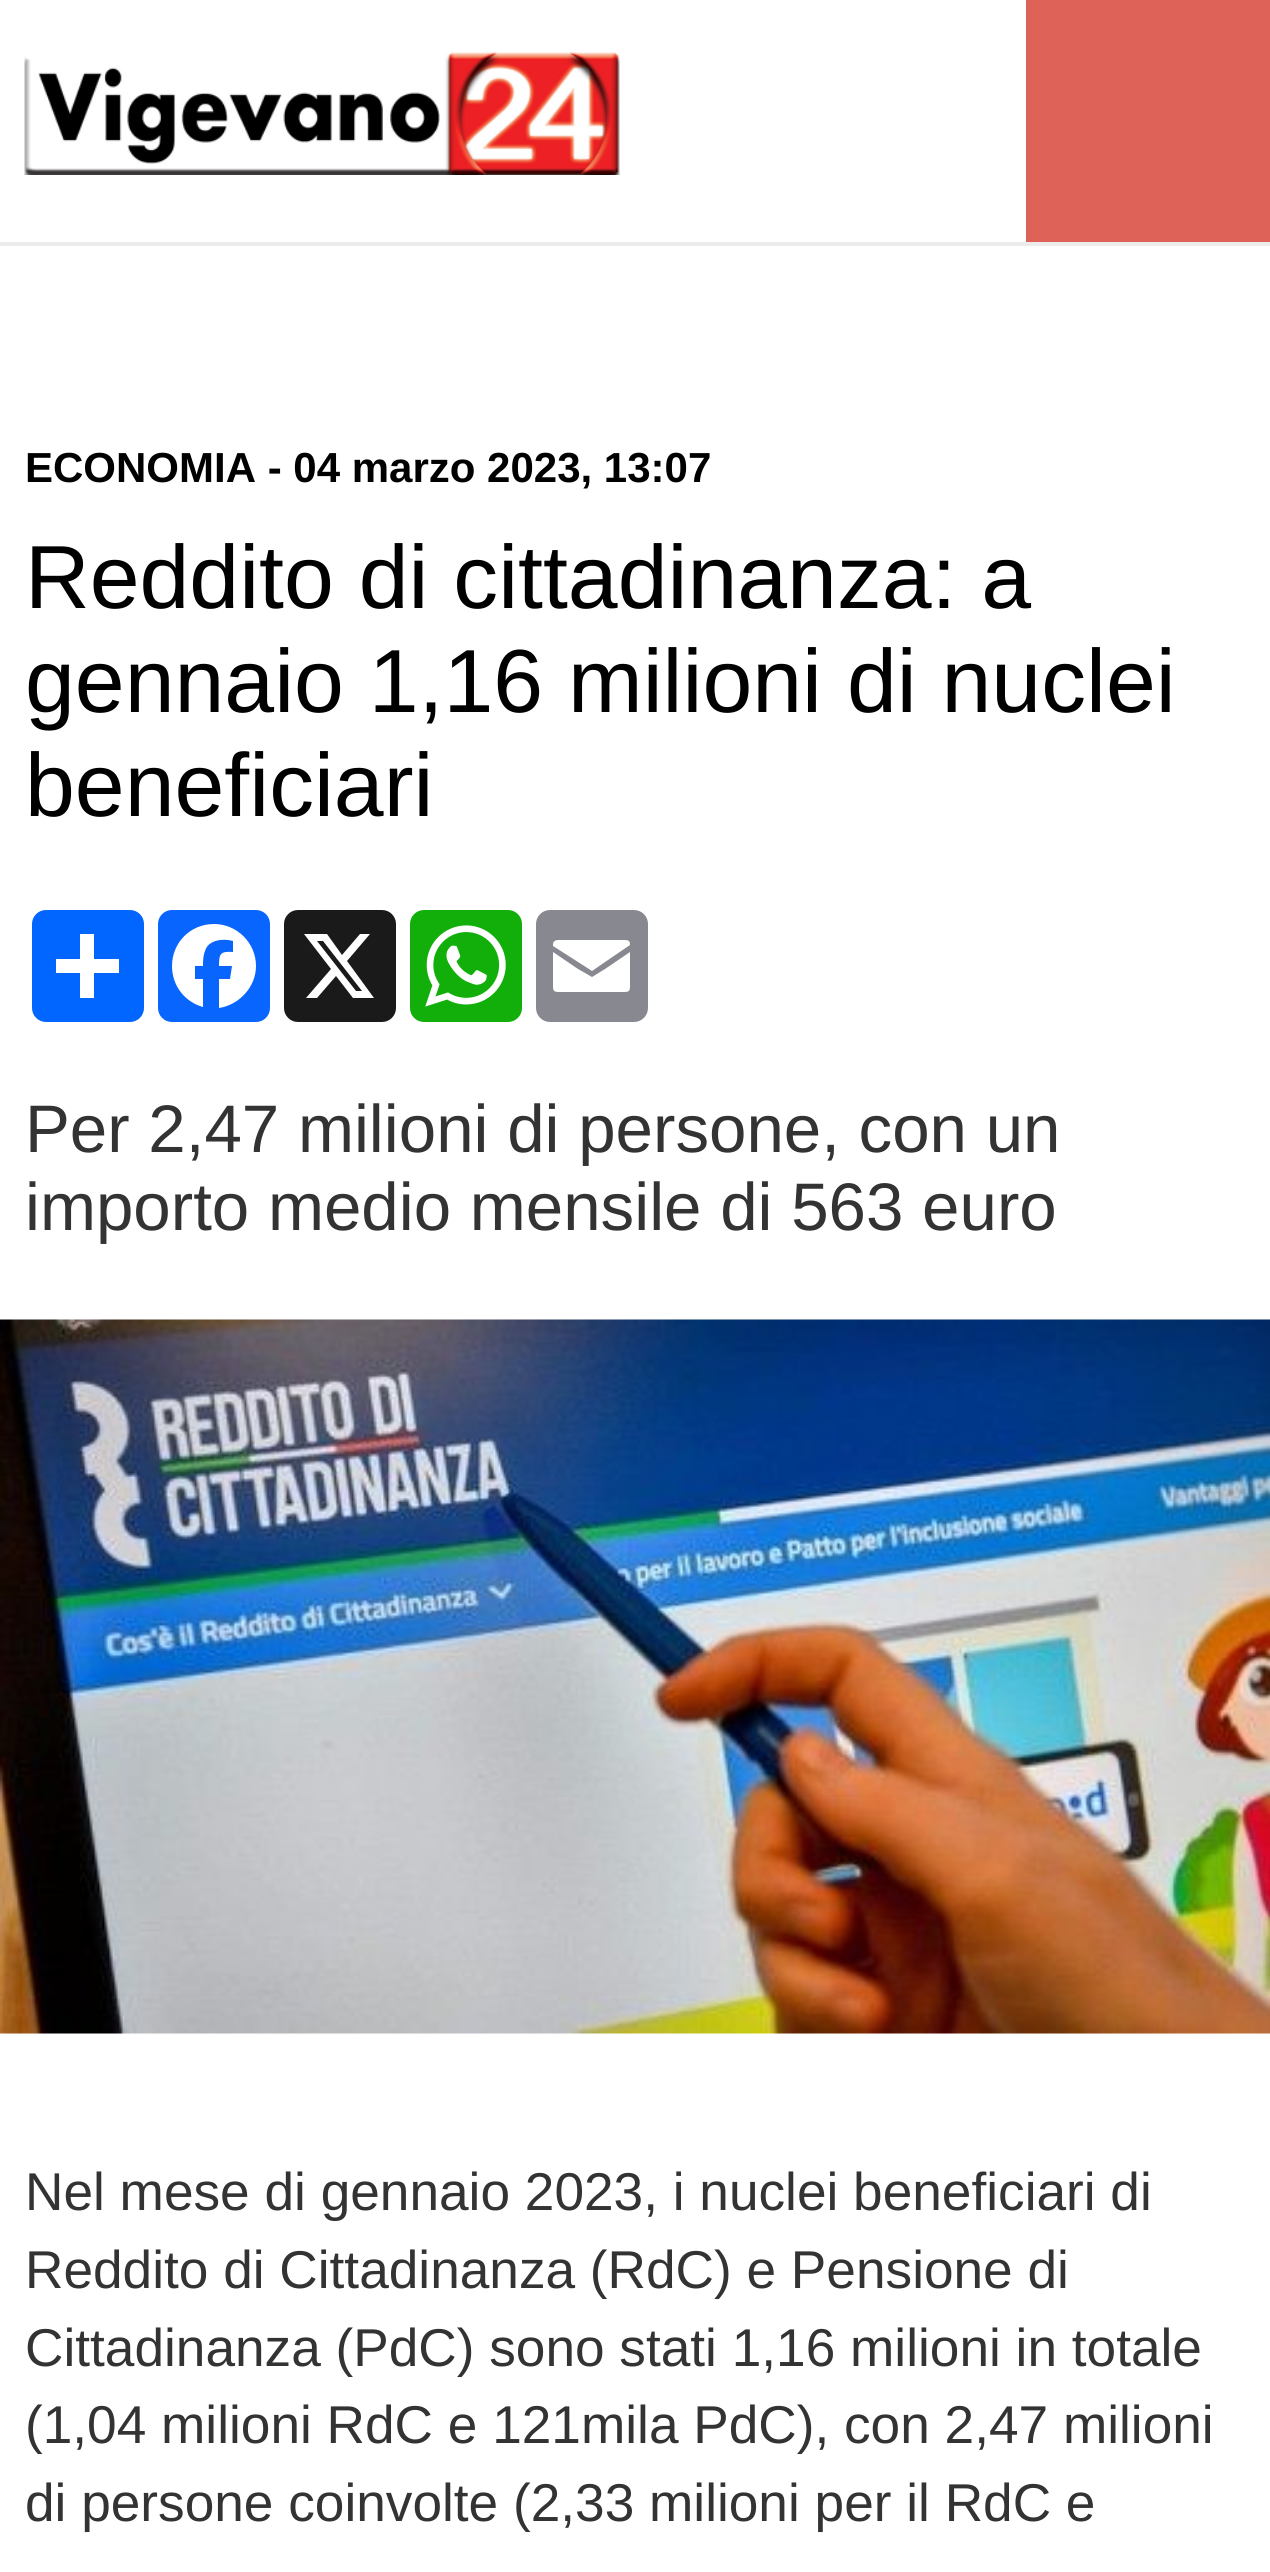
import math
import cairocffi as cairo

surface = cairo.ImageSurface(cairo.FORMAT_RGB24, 1270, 2572)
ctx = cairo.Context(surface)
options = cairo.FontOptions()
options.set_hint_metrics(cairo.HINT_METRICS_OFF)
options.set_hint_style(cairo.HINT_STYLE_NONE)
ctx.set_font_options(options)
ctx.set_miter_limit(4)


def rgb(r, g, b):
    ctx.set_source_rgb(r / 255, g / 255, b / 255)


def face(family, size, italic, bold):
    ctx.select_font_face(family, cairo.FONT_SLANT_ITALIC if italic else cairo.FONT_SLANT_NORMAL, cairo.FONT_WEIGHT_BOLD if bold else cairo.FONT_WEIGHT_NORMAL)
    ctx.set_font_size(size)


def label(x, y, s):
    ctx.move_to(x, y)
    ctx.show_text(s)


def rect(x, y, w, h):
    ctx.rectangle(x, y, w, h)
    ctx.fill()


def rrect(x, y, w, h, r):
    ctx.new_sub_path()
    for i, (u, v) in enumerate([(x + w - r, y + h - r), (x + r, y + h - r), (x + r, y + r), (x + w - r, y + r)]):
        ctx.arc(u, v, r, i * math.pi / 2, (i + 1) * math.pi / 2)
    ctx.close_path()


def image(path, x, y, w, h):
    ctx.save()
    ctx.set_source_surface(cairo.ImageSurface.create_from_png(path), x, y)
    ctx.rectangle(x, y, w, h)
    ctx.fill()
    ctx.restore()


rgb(255, 255, 255)
ctx.paint()
rgb(236, 236, 236)
rect(0, 242, 1270, 4)
image('image0.png', 24, 52, 596, 123)
rgb(222, 98, 88)
rect(1026, 0, 244, 242)
face('Liberation Sans', 42, 0, 1)
rgb(0, 0, 0)
label(25, 482, 'ECONOMIA - 04 marzo 2023, 13:07')
face('Liberation Sans', 89.6, 0, 0)
label(25, 608, 'Reddito di cittadinanza: a')
label(25, 712, 'gennaio 1,16 milioni di nuclei')
label(25, 816, 'beneficiari')
rgb(1, 102, 255)
rrect(32, 910, 112, 112, 14)
ctx.fill()
rgb(255, 255, 255)
rect(80, 934, 14, 64)
rect(56, 959, 63, 14)
rgb(8, 102, 255)
rrect(158, 910, 112, 112, 14)
ctx.fill()
rgb(255, 255, 255)
ctx.new_path()
ctx.move_to(256, 966)
ctx.curve_to(256, 943, 237, 924, 214, 924)
ctx.curve_to(190, 924, 172, 943, 172, 966)
ctx.curve_to(172, 986, 185, 1002, 203, 1007)
ctx.line_to(203, 979)
ctx.line_to(195, 979)
ctx.line_to(195, 966)
ctx.line_to(203, 966)
ctx.curve_to(203, 961, 203, 956, 205, 951)
ctx.curve_to(208, 940, 223, 938, 233, 941)
ctx.line_to(233, 952)
ctx.curve_to(220, 951, 219, 954, 219, 966)
ctx.line_to(232, 966)
ctx.line_to(230, 979)
ctx.line_to(219, 979)
ctx.line_to(219, 1008)
ctx.curve_to(239, 1005, 256, 987, 256, 966)
ctx.fill()
rgb(26, 26, 26)
rrect(284, 910, 112, 112, 14)
ctx.fill()
rgb(255, 255, 255)
ctx.new_path()
ctx.move_to(360, 934)
ctx.line_to(370, 934)
ctx.line_to(347, 961)
ctx.line_to(374, 998)
ctx.line_to(353, 998)
ctx.line_to(336, 976)
ctx.line_to(317, 998)
ctx.line_to(306, 998)
ctx.line_to(331, 969)
ctx.line_to(304, 934)
ctx.line_to(327, 934)
ctx.line_to(342, 955)
ctx.close_path()
ctx.move_to(356, 991)
ctx.line_to(362, 991)
ctx.line_to(323, 941)
ctx.line_to(317, 941)
ctx.close_path()
ctx.fill()
rgb(18, 175, 10)
rrect(410, 910, 112, 112, 14)
ctx.fill()
image('image1.png', 425, 925, 81, 82)
rgb(136, 137, 144)
rrect(536, 910, 112, 112, 14)
ctx.fill()
rgb(255, 255, 255)
ctx.new_path()
ctx.move_to(630, 986)
ctx.line_to(630, 952)
ctx.line_to(605, 969)
ctx.line_to(592, 977)
ctx.line_to(578, 969)
ctx.line_to(553, 952)
ctx.line_to(553, 986)
ctx.curve_to(553, 991, 554, 992, 559, 992)
ctx.line_to(624, 992)
ctx.curve_to(629, 992, 630, 991, 630, 986)
ctx.move_to(630, 945)
ctx.curve_to(630, 941, 629, 940, 624, 940)
ctx.line_to(559, 940)
ctx.curve_to(554, 940, 553, 942, 553, 945)
ctx.line_to(553, 946)
ctx.line_to(578, 962)
ctx.line_to(592, 971)
ctx.line_to(605, 962)
ctx.close_path()
ctx.fill()
face('Liberation Sans', 67.25, 0, 0)
rgb(51, 51, 51)
label(25, 1152, 'Per 2,47 milioni di persone, con un')
label(25, 1230, 'importo medio mensile di 563 euro')
image('image2.png', 0, 1319, 1270, 715)
face('Liberation Sans', 53.2, 0, 0)
label(25, 2210, 'Nel mese di gennaio 2023, i nuclei beneficiari di')
label(25, 2288, 'Reddito di Cittadinanza (RdC) e Pensione di')
label(25, 2366, 'Cittadinanza (PdC) sono stati 1,16 milioni in totale')
label(25, 2443, '(1,04 milioni RdC e 121mila PdC), con 2,47 milioni')
label(25, 2521, 'di persone coinvolte (2,33 milioni per il RdC e')
surface.write_to_png('render.png')
